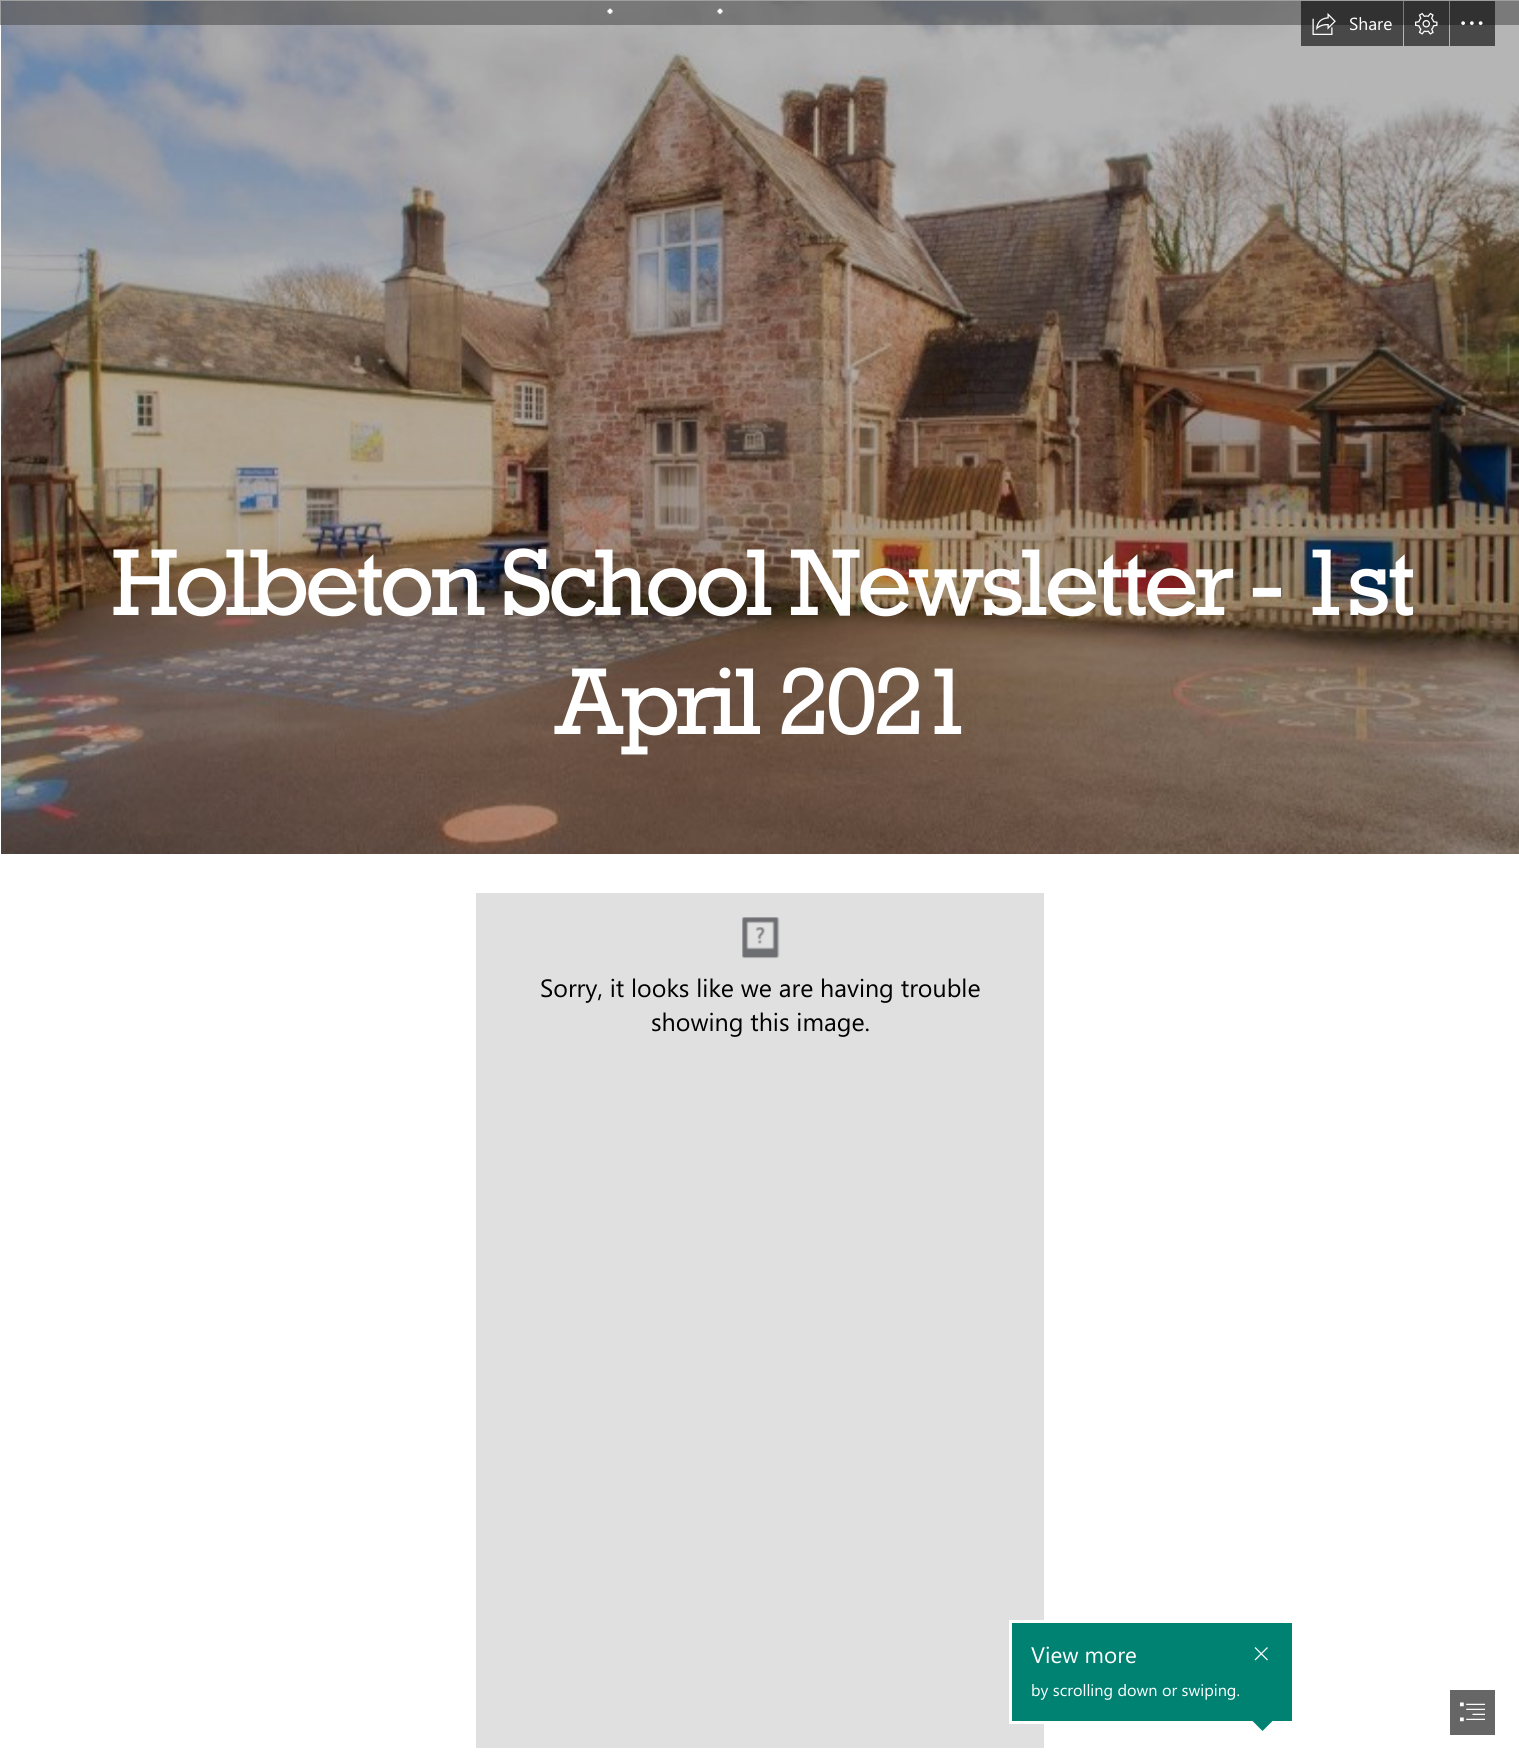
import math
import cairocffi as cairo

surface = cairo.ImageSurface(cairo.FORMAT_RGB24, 1519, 1761)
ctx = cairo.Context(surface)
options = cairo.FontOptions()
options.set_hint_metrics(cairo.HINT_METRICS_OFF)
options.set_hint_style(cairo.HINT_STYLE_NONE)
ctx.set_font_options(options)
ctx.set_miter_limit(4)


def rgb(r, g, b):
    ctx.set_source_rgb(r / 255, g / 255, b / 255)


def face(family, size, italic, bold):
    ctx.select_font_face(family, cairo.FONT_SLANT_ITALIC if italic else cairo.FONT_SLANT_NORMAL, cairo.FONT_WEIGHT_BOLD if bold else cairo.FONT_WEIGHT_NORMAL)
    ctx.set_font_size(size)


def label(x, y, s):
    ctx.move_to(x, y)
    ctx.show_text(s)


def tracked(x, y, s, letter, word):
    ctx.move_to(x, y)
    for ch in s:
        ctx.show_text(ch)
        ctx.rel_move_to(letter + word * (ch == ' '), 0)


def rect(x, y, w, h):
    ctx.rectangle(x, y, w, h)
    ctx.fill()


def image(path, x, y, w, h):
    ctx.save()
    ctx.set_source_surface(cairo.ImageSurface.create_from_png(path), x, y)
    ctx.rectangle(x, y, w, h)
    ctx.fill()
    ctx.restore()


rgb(255, 255, 255)
ctx.paint()
image('image4.png', 1, 1, 1518, 853)
ctx.set_source_rgba(0.251, 0.251, 0.251, 0.5)
rect(0, 0, 1519, 25)
ctx.set_source_rgba(0, 0, 0, 0.6)
rect(1301, 1, 102, 45)
image('image0.png', 1312, 13, 24, 22)
face('Segoe UI', 17.5, 0, 0)
rgb(255, 255, 255)
label(1349, 30, 'Share')
ctx.set_source_rgba(0, 0, 0, 0.6)
rect(1404, 1, 45, 45)
image('image1.png', 1415, 12, 23, 23)
rect(1450, 1, 45, 45)
image('image2.png', 1461, 21, 22, 4)
image('image3.png', 607, 8, 116, 6)
face('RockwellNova', 89, 0, 0)
rgb(255, 255, 255)
tracked(111, 615, 'Holbeton School Newsletter - 1st', -4.55, 0)
tracked(553, 734, 'April 2021', -4.55, 0)
rgb(224, 224, 224)
rect(476, 893, 568, 855)
image('image5.png', 742, 917, 38, 42)
face('Segoe UI', 25, 0, 0)
rgb(0, 0, 0)
label(540, 997, 'Sorry, it looks like we are having trouble')
label(651, 1031, 'showing this image.')
rgb(0, 130, 114)
ctx.rectangle(1010.5, 1621.5, 283, 101)
ctx.fill_preserve()
rgb(255, 255, 255)
ctx.set_line_width(3)
ctx.stroke()
face('Segoe UI', 22.5, 0, 0)
label(1031, 1663, 'View more')
face('Segoe UI', 16.25, 0, 0)
label(1031, 1696, 'by scrolling down or swiping.')
image('image6.png', 1254, 1647, 14, 14)
rgb(0, 130, 114)
ctx.new_path()
ctx.move_to(1252.5, 1721)
ctx.line_to(1272.5, 1721)
ctx.line_to(1262.5, 1731)
ctx.close_path()
ctx.fill()
rgb(102, 102, 102)
rect(1450, 1690, 45, 45)
image('image7.png', 1460, 1702, 25, 20)
surface.write_to_png('render.png')
